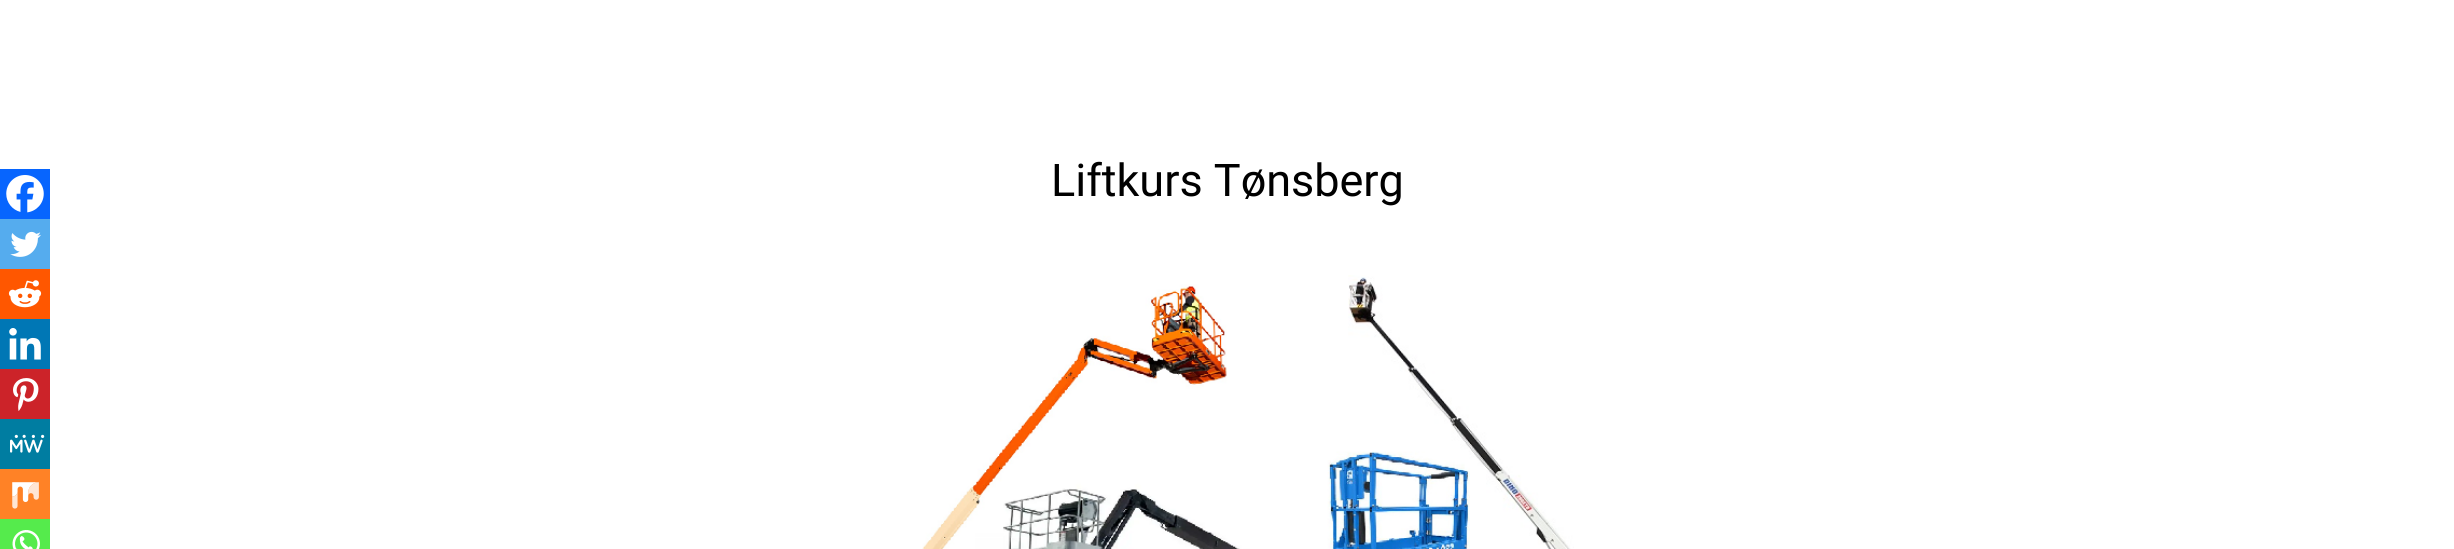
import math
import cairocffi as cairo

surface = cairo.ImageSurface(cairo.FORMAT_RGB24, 2454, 549)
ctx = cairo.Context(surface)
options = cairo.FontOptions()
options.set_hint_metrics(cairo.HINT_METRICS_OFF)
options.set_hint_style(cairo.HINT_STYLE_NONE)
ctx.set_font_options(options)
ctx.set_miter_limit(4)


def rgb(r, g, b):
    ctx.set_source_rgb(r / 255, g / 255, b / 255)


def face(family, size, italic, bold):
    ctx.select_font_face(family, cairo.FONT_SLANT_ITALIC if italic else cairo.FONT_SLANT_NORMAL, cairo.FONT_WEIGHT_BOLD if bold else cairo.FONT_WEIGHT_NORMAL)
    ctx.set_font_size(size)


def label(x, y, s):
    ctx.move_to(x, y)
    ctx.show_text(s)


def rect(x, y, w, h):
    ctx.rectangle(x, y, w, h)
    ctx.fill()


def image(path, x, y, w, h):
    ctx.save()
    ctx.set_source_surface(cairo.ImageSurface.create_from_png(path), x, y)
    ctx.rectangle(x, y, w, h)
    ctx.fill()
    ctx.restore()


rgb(255, 255, 255)
ctx.paint()
face('Roboto', 45, 0, 0)
rgb(0, 0, 0)
label(1051, 196, 'Liftkurs Tønsberg')
rgb(7, 101, 254)
rect(0, 169, 50, 50)
image('image0.png', 6, 175, 38, 38)
rgb(85, 172, 238)
rect(0, 219, 50, 50)
image('image1.png', 10, 231, 31, 26)
rgb(255, 87, 0)
rect(0, 269, 50, 50)
image('image2.png', 8, 280, 34, 28)
rgb(0, 119, 181)
rect(0, 319, 50, 50)
image('image3.png', 9, 328, 32, 32)
rgb(204, 35, 41)
rect(0, 369, 50, 50)
image('image4.png', 13, 378, 26, 33)
rgb(0, 125, 161)
rect(0, 419, 50, 50)
image('image5.png', 10, 434, 35, 19)
rgb(255, 130, 38)
rect(0, 469, 50, 50)
image('image6.png', 12, 482, 27, 27)
rgb(85, 235, 76)
rect(0, 519, 50, 30)
image('image7.png', 12, 530, 28, 19)
image('image8.png', 922, 275, 652, 274)
surface.write_to_png('render.png')
